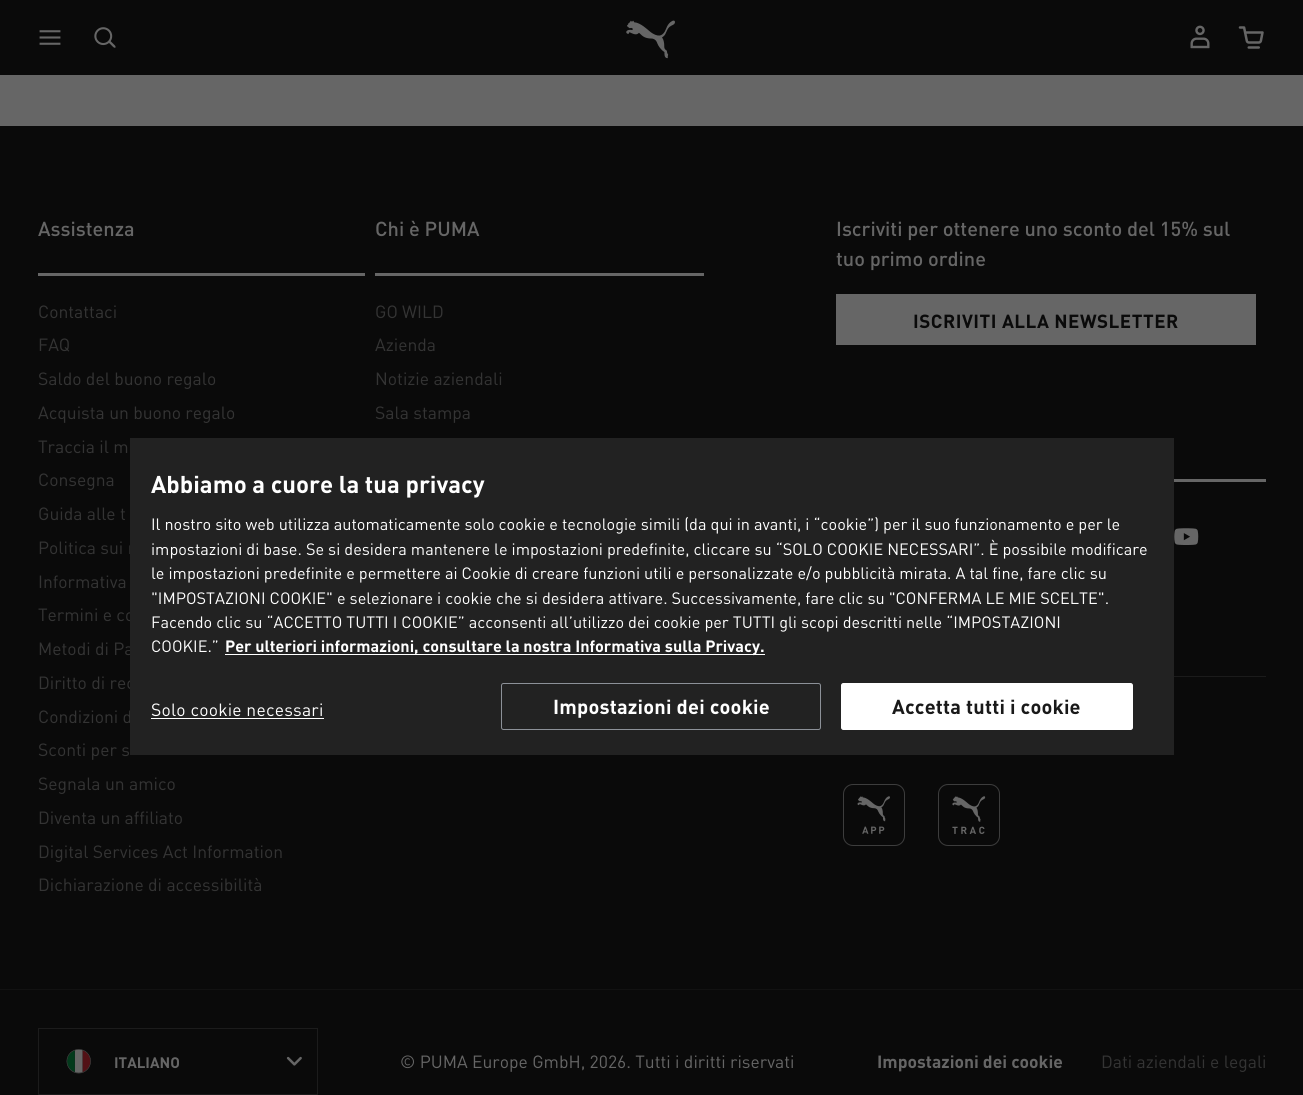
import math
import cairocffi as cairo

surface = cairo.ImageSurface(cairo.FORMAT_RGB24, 1303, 1095)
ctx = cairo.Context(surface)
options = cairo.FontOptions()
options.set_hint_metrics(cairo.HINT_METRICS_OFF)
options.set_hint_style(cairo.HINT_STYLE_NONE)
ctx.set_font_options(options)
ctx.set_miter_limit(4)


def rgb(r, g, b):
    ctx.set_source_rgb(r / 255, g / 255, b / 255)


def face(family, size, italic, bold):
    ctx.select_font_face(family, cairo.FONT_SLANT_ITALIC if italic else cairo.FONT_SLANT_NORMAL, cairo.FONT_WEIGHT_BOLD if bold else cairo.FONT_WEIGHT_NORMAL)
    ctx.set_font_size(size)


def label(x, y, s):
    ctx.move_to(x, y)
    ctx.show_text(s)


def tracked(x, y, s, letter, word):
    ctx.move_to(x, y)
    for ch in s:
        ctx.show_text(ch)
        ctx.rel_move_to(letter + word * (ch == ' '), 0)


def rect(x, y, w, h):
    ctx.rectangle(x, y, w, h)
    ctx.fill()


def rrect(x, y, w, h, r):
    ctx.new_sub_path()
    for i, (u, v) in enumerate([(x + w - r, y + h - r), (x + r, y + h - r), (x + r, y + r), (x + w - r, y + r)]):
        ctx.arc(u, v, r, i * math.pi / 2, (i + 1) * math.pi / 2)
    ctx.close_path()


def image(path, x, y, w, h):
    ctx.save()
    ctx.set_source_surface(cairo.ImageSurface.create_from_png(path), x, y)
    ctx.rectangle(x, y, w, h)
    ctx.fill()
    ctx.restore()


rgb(102, 102, 102)
ctx.paint()
rgb(10, 10, 10)
rect(0, 0, 1303, 75)
image('image0.png', 39, 30, 22, 15)
image('image1.png', 94, 27, 22, 21)
image('image2.png', 626, 20, 49, 39)
image('image3.png', 1190, 25, 20, 24)
image('image4.png', 1238, 26, 26, 23)
rect(0, 126, 1303, 863)
rgb(102, 102, 102)
rect(38, 273, 327, 3)
face('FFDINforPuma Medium', 20, 0, 0)
label(38, 236, 'Assistenza')
face('FFDINforPuma', 17.5, 0, 0)
rgb(52, 52, 52)
label(38, 318, 'Contattaci')
label(38, 351, 'FAQ')
label(38, 385, 'Saldo del buono regalo')
label(38, 419, 'Acquista un buono regalo')
label(38, 453, 'Traccia il m')
label(38, 486, 'Consegna')
label(38, 520, 'Guida alle t')
label(38, 554, 'Politica sui r')
label(38, 588, 'Informativa')
label(38, 621, 'Termini e co')
label(38, 655, 'Metodi di Pa')
label(38, 689, 'Diritto di rec')
label(38, 723, 'Condizioni d')
label(38, 756, 'Sconti per s')
label(38, 790, 'Segnala un amico')
label(38, 824, 'Diventa un affiliato')
label(38, 858, 'Digital Services Act Information')
label(38, 891, 'Dichiarazione di accessibilità')
rgb(102, 102, 102)
rect(375, 273, 329, 3)
face('FFDINforPuma Medium', 20, 0, 0)
label(375, 236, 'Chi è PUMA')
face('FFDINforPuma', 17.5, 0, 0)
rgb(52, 52, 52)
label(375, 318, 'GO WILD')
label(375, 351, 'Azienda')
label(375, 385, 'Notizie aziendali')
label(375, 419, 'Sala stampa')
face('FFDINforPuma Medium', 20, 0, 0)
rgb(102, 102, 102)
label(836, 236, 'Iscriviti per ottenere uno sconto del 15% sul')
label(836, 266, 'tuo primo ordine')
rect(836, 294, 420, 51)
face('FFDINforPuma', 18.75, 0, 1)
rgb(10, 10, 10)
tracked(913, 328, 'ISCRIVITI ALLA NEWSLETTER', 0.5, 0)
rgb(102, 102, 102)
rect(1174, 479, 92, 3)
image('image5.png', 1174, 528, 25, 17)
rgb(27, 27, 27)
rect(1174, 676, 92, 1)
image('image6.png', 843, 784, 62, 62)
image('image7.png', 938, 784, 62, 62)
rgb(10, 10, 10)
rect(0, 990, 1303, 105)
rgb(18, 18, 18)
rect(0, 989, 1303, 1)
ctx.rectangle(38.5, 1028.5, 279, 66)
rgb(28, 28, 28)
ctx.set_line_width(1)
ctx.stroke()
image('image8.png', 66, 1049, 25, 25)
face('FFDINforPuma', 15, 0, 1)
rgb(102, 102, 102)
label(114, 1068, 'ITALIANO')
image('image9.png', 286, 1056, 16, 10)
face('FFDINforPuma', 17.5, 0, 0)
label(400, 1068, '© PUMA Europe GmbH, 2026. Tutti i diritti riservati')
face('FFDINforPuma', 17.5, 0, 1)
label(877, 1068, 'Impostazioni dei cookie')
face('FFDINforPuma', 17.5, 0, 0)
rgb(52, 52, 52)
label(1101, 1068, 'Dati aziendali e legali')
rgb(34, 34, 34)
rect(130, 438, 1044, 317)
face('FFDINforPuma', 24, 0, 1)
rgb(255, 255, 255)
label(151, 493, 'Abbiamo a cuore la tua privacy')
face('FFDINforPuma', 16.25, 0, 0)
label(151, 530, 'Il nostro sito web utilizza automaticamente solo cookie e tecnologie simili (da qui in avanti, i “cookie”) per il suo funzionamento e per le')
label(151, 555, 'impostazioni di base. Se si desidera mantenere le impostazioni predefinite, cliccare su “SOLO COOKIE NECESSARI”. È possibile modificare')
label(151, 579, 'le impostazioni predefinite e permettere ai Cookie di creare funzioni utili e personalizzate e/o pubblicità mirata. A tal fine, fare clic su')
label(151, 604, '"IMPOSTAZIONI COOKIE" e selezionare i cookie che si desidera attivare. Successivamente, fare clic su "CONFERMA LE MIE SCELTE".')
label(151, 628, 'Facendo clic su “ACCETTO TUTTI I COOKIE” acconsenti all’utilizzo dei cookie per TUTTI gli scopi descritti nelle “IMPOSTAZIONI')
label(151, 652, 'COOKIE.”')
rect(225, 654, 540, 1)
face('FFDINforPuma', 16.25, 0, 1)
label(225, 652, 'Per ulteriori informazioni, consultare la nostra Informativa sulla Privacy.')
face('FFDINforPuma', 17.5, 0, 0)
tracked(151, 716, 'Solo cookie necessari', 0.2, 0)
rect(151, 718, 173, 1)
rrect(501.5, 683.5, 319, 46, 2)
rgb(140, 145, 152)
ctx.stroke()
face('FFDINforPuma', 20, 0, 1)
rgb(255, 255, 255)
tracked(553, 714, 'Impostazioni dei cookie', 0.2, 0)
rrect(841.5, 683.5, 291, 46, 2)
ctx.fill_preserve()
ctx.stroke()
rgb(25, 25, 25)
tracked(892, 714, 'Accetta tutti i cookie', 0.2, 0)
surface.write_to_png('render.png')
